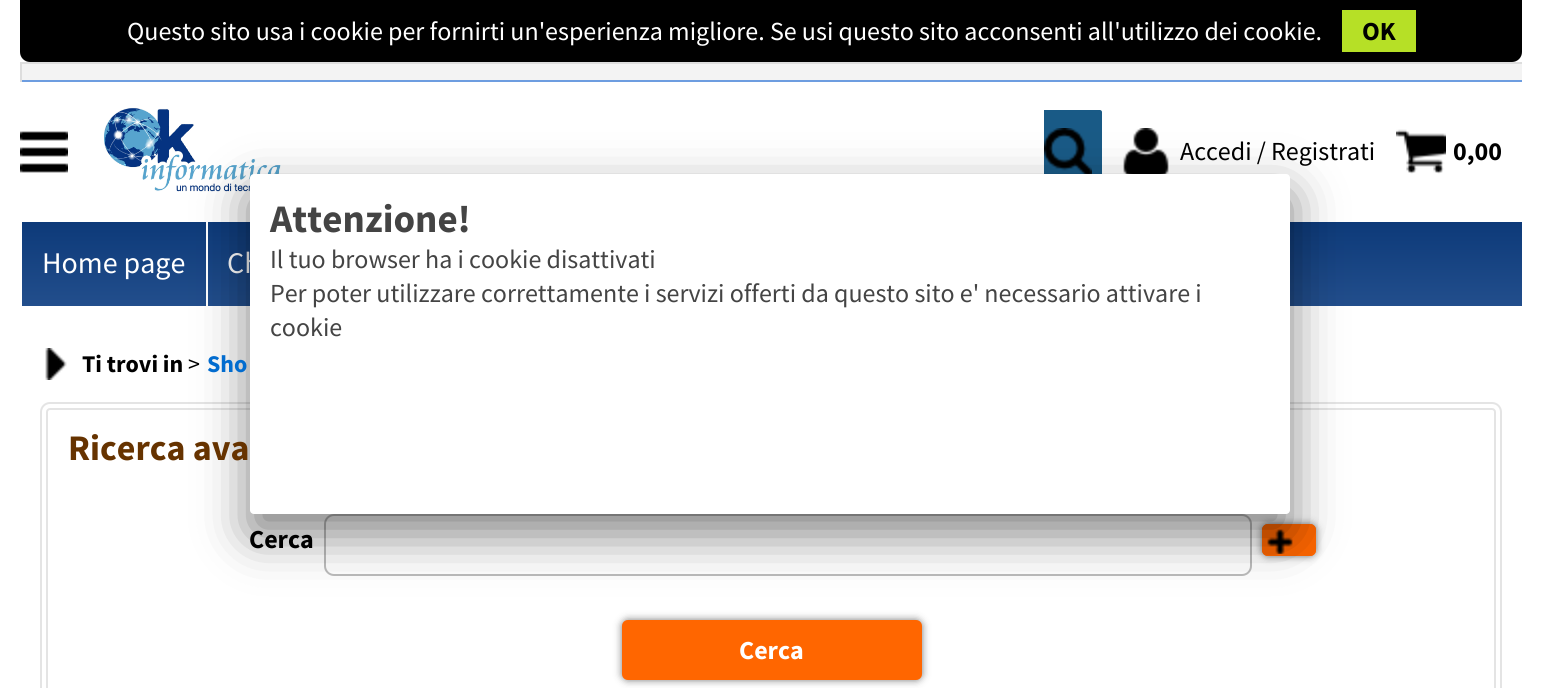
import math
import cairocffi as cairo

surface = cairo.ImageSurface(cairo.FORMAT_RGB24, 1541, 688)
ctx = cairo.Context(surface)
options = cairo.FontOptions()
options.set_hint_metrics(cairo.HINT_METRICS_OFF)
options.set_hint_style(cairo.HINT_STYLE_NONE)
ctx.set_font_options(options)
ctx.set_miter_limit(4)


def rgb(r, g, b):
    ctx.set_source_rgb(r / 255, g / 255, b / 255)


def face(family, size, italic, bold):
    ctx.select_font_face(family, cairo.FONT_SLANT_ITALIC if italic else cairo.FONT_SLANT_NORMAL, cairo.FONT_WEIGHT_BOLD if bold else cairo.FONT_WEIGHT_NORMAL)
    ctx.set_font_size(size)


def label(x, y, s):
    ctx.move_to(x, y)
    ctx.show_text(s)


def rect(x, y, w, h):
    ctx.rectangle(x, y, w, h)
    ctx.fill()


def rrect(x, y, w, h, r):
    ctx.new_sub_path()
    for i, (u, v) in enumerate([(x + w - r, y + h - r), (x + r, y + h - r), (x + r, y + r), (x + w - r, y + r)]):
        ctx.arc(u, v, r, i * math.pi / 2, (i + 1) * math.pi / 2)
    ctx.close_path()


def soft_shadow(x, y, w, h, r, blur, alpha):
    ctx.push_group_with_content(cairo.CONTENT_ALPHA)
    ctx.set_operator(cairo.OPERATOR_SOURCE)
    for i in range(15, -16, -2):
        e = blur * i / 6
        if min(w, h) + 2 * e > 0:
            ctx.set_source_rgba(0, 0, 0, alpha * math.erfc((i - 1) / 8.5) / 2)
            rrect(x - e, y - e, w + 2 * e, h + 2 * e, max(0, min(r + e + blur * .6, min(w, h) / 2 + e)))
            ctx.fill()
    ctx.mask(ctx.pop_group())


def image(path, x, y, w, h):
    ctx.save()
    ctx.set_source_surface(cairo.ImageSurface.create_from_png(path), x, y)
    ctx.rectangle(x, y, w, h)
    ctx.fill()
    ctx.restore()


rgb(255, 255, 255)
ctx.paint()
rgb(0, 0, 0)
ctx.new_path()
ctx.move_to(20, 0)
ctx.line_to(1522, 0)
ctx.line_to(1522, 52)
ctx.curve_to(1522, 57.5, 1517.5, 62, 1512, 62)
ctx.line_to(30, 62)
ctx.curve_to(24.5, 62, 20, 57.5, 20, 52)
ctx.close_path()
ctx.fill()
face('Source Sans Pro', 26, 0, 0)
rgb(255, 255, 255)
label(127, 40, 'Questo sito usa i cookie per fornirti un\'esperienza migliore. Se usi questo sito acconsenti all\'utilizzo dei cookie.')
rgb(182, 224, 38)
rect(1342, 10, 74, 42)
face('Source Sans Pro', 26, 0, 1)
rgb(0, 0, 0)
label(1362, 40, 'OK')
rgb(243, 243, 243)
rect(22, 64, 1500, 16)
rgb(221, 221, 221)
rect(20, 62, 1502, 2)
rgb(109, 157, 224)
rect(20, 80, 1502, 2)
rgb(221, 221, 221)
rect(20, 62, 2, 20)
image('image0.png', 20, 131, 48, 42)
image('image1.png', 104, 107, 177, 87)
rgb(25, 90, 134)
ctx.new_path()
ctx.move_to(1044, 110)
ctx.line_to(1100, 110)
ctx.curve_to(1101, 110, 1102, 111, 1102, 112)
ctx.line_to(1102, 192)
ctx.curve_to(1102, 193, 1101, 194, 1100, 194)
ctx.line_to(1044, 194)
ctx.close_path()
ctx.fill()
image('image2.png', 1044, 128, 48, 46)
image('image3.png', 1123, 128, 46, 46)
face('Source Sans Pro', 26, 0, 0)
rgb(0, 0, 0)
label(1180, 160, 'Accedi / Registrati')
image('image4.png', 1396, 129, 50, 45)
face('Source Sans Pro', 26, 0, 1)
label(1453, 160, '0,00')
gradient = cairo.LinearGradient(771, 222, 771, 306)
gradient.add_color_stop_rgba(0, 0.051, 0.227, 0.475, 1)
gradient.add_color_stop_rgba(1, 0.133, 0.306, 0.549, 1)
ctx.set_source(gradient)
rect(22, 222, 1500, 84)
face('Source Sans Pro', 30, 0, 0)
rgb(255, 255, 255)
label(42, 273, 'Home page')
rect(206, 222, 2, 84)
label(227, 273, 'Ch')
rrect(41, 403, 1460, 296, 9)
rgb(228, 228, 228)
ctx.stroke()
rrect(47, 409, 1448, 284, 3)
ctx.stroke()
rrect(325, 515, 926, 60, 9)
rgb(187, 187, 187)
ctx.stroke()
rgb(119, 119, 119)
soft_shadow(1262, 524, 54, 32, 6, 4, 1)
rgb(255, 102, 0)
rrect(1262, 524, 54, 32, 6)
ctx.fill()
image('image6.png', 1267, 529, 26, 25)
rrect(1263, 525, 52, 30, 5)
ctx.stroke()
rgb(0, 0, 0)
soft_shadow(250, 194, 1040, 340, 4, 25, 0.5)
rgb(255, 255, 255)
rrect(250, 174, 1040, 340, 4)
ctx.fill()
face('Source Sans Pro', 39, 0, 1)
rgb(68, 68, 68)
label(270, 232, 'Attenzione!')
face('Source Sans Pro', 26, 0, 0)
label(270, 268, 'Il tuo browser ha i cookie disattivati')
label(270, 302, 'Per poter utilizzare correttamente i servizi offerti da questo sito e\' necessario attivare i')
label(270, 336, 'cookie')
image('image5.png', 45, 348, 22, 32)
face('Source Sans Pro', 24, 0, 1)
rgb(0, 0, 0)
label(82, 372, 'Ti trovi in')
face('Source Sans Pro', 24, 0, 0)
label(188, 372, '>')
face('Source Sans Pro', 24, 0, 1)
rgb(2, 108, 207)
label(207, 372, 'Sho')
face('Source Sans Pro', 36, 0, 1)
rgb(102, 51, 0)
label(68, 460, 'Ricerca ava')
face('Source Sans Pro', 26, 0, 1)
rgb(0, 0, 0)
label(249, 548, 'Cerca')
rgb(119, 119, 119)
soft_shadow(622, 620, 300, 60, 6, 4, 1)
rgb(255, 102, 0)
rrect(623, 621, 298, 58, 5)
ctx.fill_preserve()
ctx.stroke()
rgb(255, 255, 255)
label(739, 659, 'Cerca')
surface.write_to_png('render.png')
